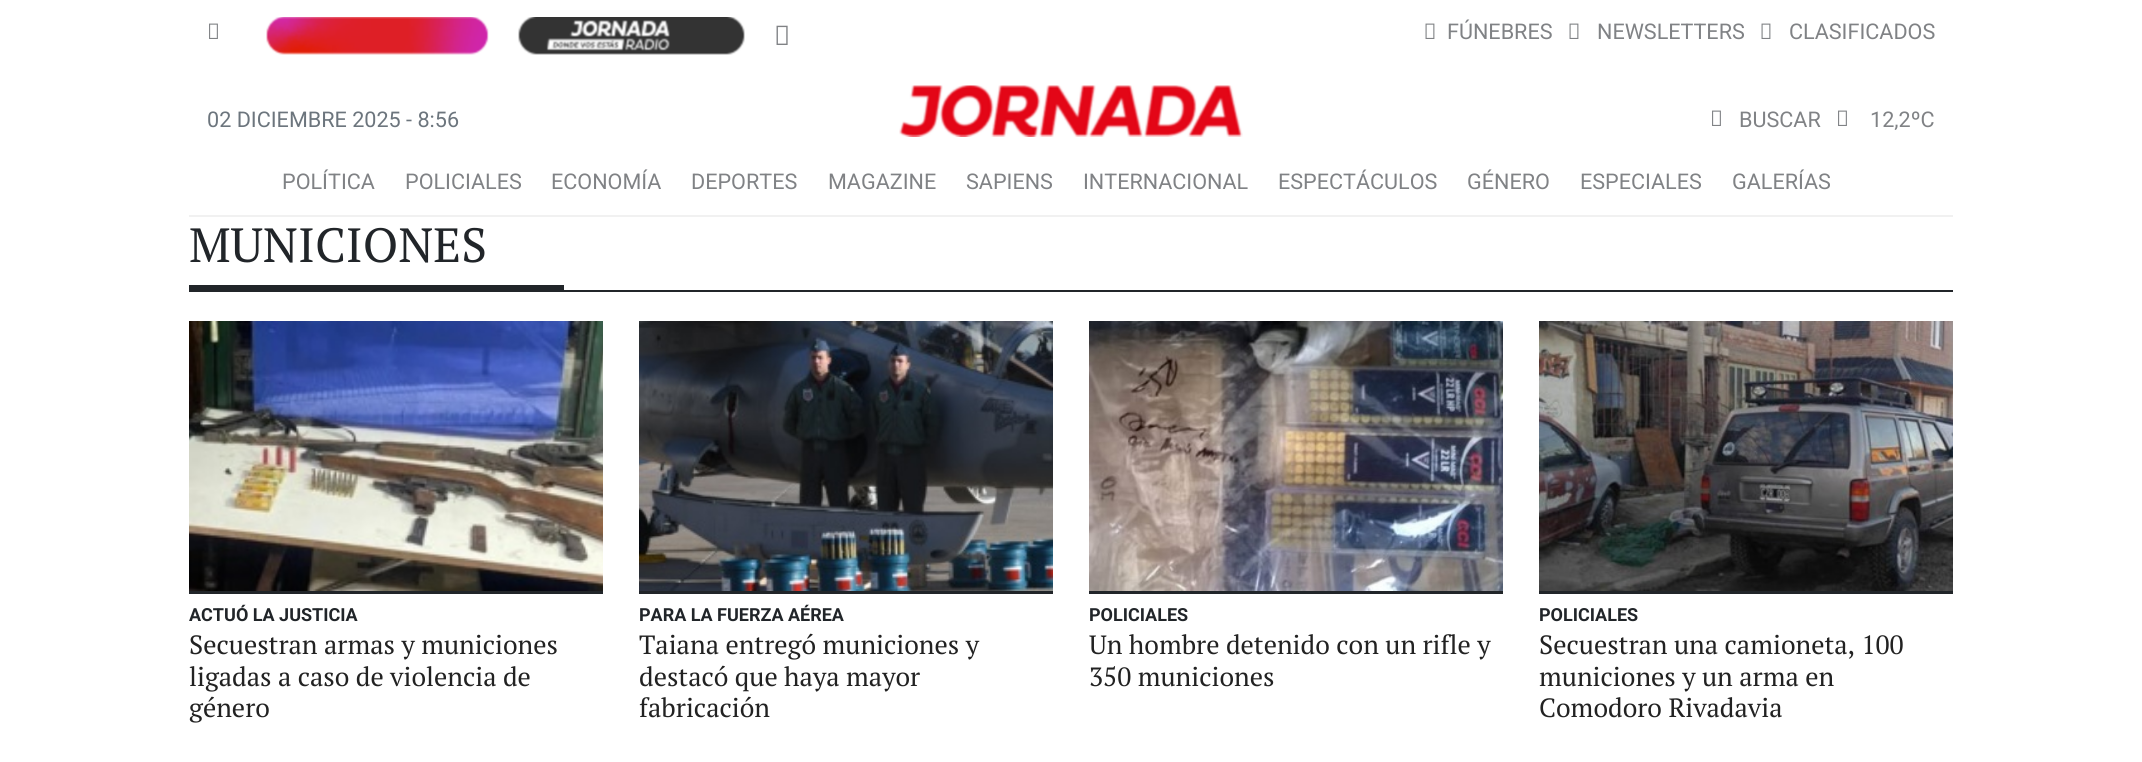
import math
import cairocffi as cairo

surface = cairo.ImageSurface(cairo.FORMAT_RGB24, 2142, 762)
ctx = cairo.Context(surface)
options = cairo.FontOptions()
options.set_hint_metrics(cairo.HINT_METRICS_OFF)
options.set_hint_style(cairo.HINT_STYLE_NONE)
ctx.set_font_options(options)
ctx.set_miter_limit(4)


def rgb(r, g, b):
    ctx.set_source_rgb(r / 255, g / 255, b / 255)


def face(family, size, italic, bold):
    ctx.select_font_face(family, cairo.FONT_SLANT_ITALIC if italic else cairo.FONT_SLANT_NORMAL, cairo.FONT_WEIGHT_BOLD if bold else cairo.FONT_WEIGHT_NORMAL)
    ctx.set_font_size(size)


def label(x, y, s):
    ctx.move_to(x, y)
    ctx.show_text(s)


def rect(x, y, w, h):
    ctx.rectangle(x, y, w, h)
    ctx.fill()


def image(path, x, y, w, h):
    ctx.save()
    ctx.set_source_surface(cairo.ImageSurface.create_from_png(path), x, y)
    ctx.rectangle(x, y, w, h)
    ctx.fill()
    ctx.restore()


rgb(255, 255, 255)
ctx.paint()
image('image0.png', 209, 23, 9, 16)
image('image1.png', 266, 17, 223, 38)
image('image2.png', 518, 17, 227, 38)
image('image3.png', 776, 25, 12, 20)
image('image4.png', 1425, 23, 10, 16)
face('Roboto', 21.6, 0, 0)
rgb(128, 130, 133)
label(1447, 39, 'FÚNEBRES')
image('image4.png', 1569, 23, 10, 16)
label(1597, 39, 'NEWSLETTERS')
image('image4.png', 1761, 23, 10, 16)
label(1789, 39, 'CLASIFICADOS')
rgb(108, 117, 125)
label(207, 127, '02 DICIEMBRE 2025 - 8:56')
image('image5.png', 899, 85, 344, 52)
image('image0.png', 1712, 110, 9, 16)
rgb(128, 130, 133)
label(1739, 127, 'BUSCAR')
image('image0.png', 1838, 110, 9, 16)
label(1870, 127, '12,2ºC')
rgb(241, 241, 241)
rect(189, 215, 1764, 2)
rgb(128, 130, 133)
label(282, 189, 'POLÍTICA')
label(405, 189, 'POLICIALES')
label(551, 189, 'ECONOMÍA')
label(691, 189, 'DEPORTES')
label(828, 189, 'MAGAZINE')
label(966, 189, 'SAPIENS')
label(1083, 189, 'INTERNACIONAL')
label(1278, 189, 'ESPECTÁCULOS')
label(1467, 189, 'GÉNERO')
label(1580, 189, 'ESPECIALES')
label(1732, 189, 'GALERÍAS')
face('PT Serif', 48, 0, 0)
rgb(33, 37, 41)
label(189, 262, 'MUNICIONES')
rect(189, 285, 375, 5)
rect(189, 290, 1764, 2)
image('image6.png', 189, 321, 414, 270)
rect(189, 591, 414, 3)
face('Roboto', 18, 0, 1)
label(189, 621, 'ACTUÓ LA JUSTICIA')
face('PT Serif', 26.4, 0, 0)
rgb(34, 34, 34)
label(189, 654, 'Secuestran armas y municiones')
label(189, 686, 'ligadas a caso de violencia de')
label(189, 717, 'género')
image('image7.png', 639, 321, 414, 270)
rgb(33, 37, 41)
rect(639, 591, 414, 3)
face('Roboto', 18, 0, 1)
label(639, 621, 'PARA LA FUERZA AÉREA')
face('PT Serif', 26.4, 0, 0)
rgb(34, 34, 34)
label(639, 654, 'Taiana entregó municiones y')
label(639, 686, 'destacó que haya mayor')
label(639, 717, 'fabricación')
image('image8.png', 1089, 321, 414, 270)
rgb(33, 37, 41)
rect(1089, 591, 414, 3)
face('Roboto', 18, 0, 1)
label(1089, 621, 'POLICIALES')
face('PT Serif', 26.4, 0, 0)
rgb(34, 34, 34)
label(1089, 654, 'Un hombre detenido con un rifle y')
label(1089, 686, '350 municiones')
image('image9.png', 1539, 321, 414, 270)
rgb(33, 37, 41)
rect(1539, 591, 414, 3)
face('Roboto', 18, 0, 1)
label(1539, 621, 'POLICIALES')
face('PT Serif', 26.4, 0, 0)
rgb(34, 34, 34)
label(1539, 654, 'Secuestran una camioneta, 100')
label(1539, 686, 'municiones y un arma en')
label(1539, 717, 'Comodoro Rivadavia')
surface.write_to_png('render.png')
